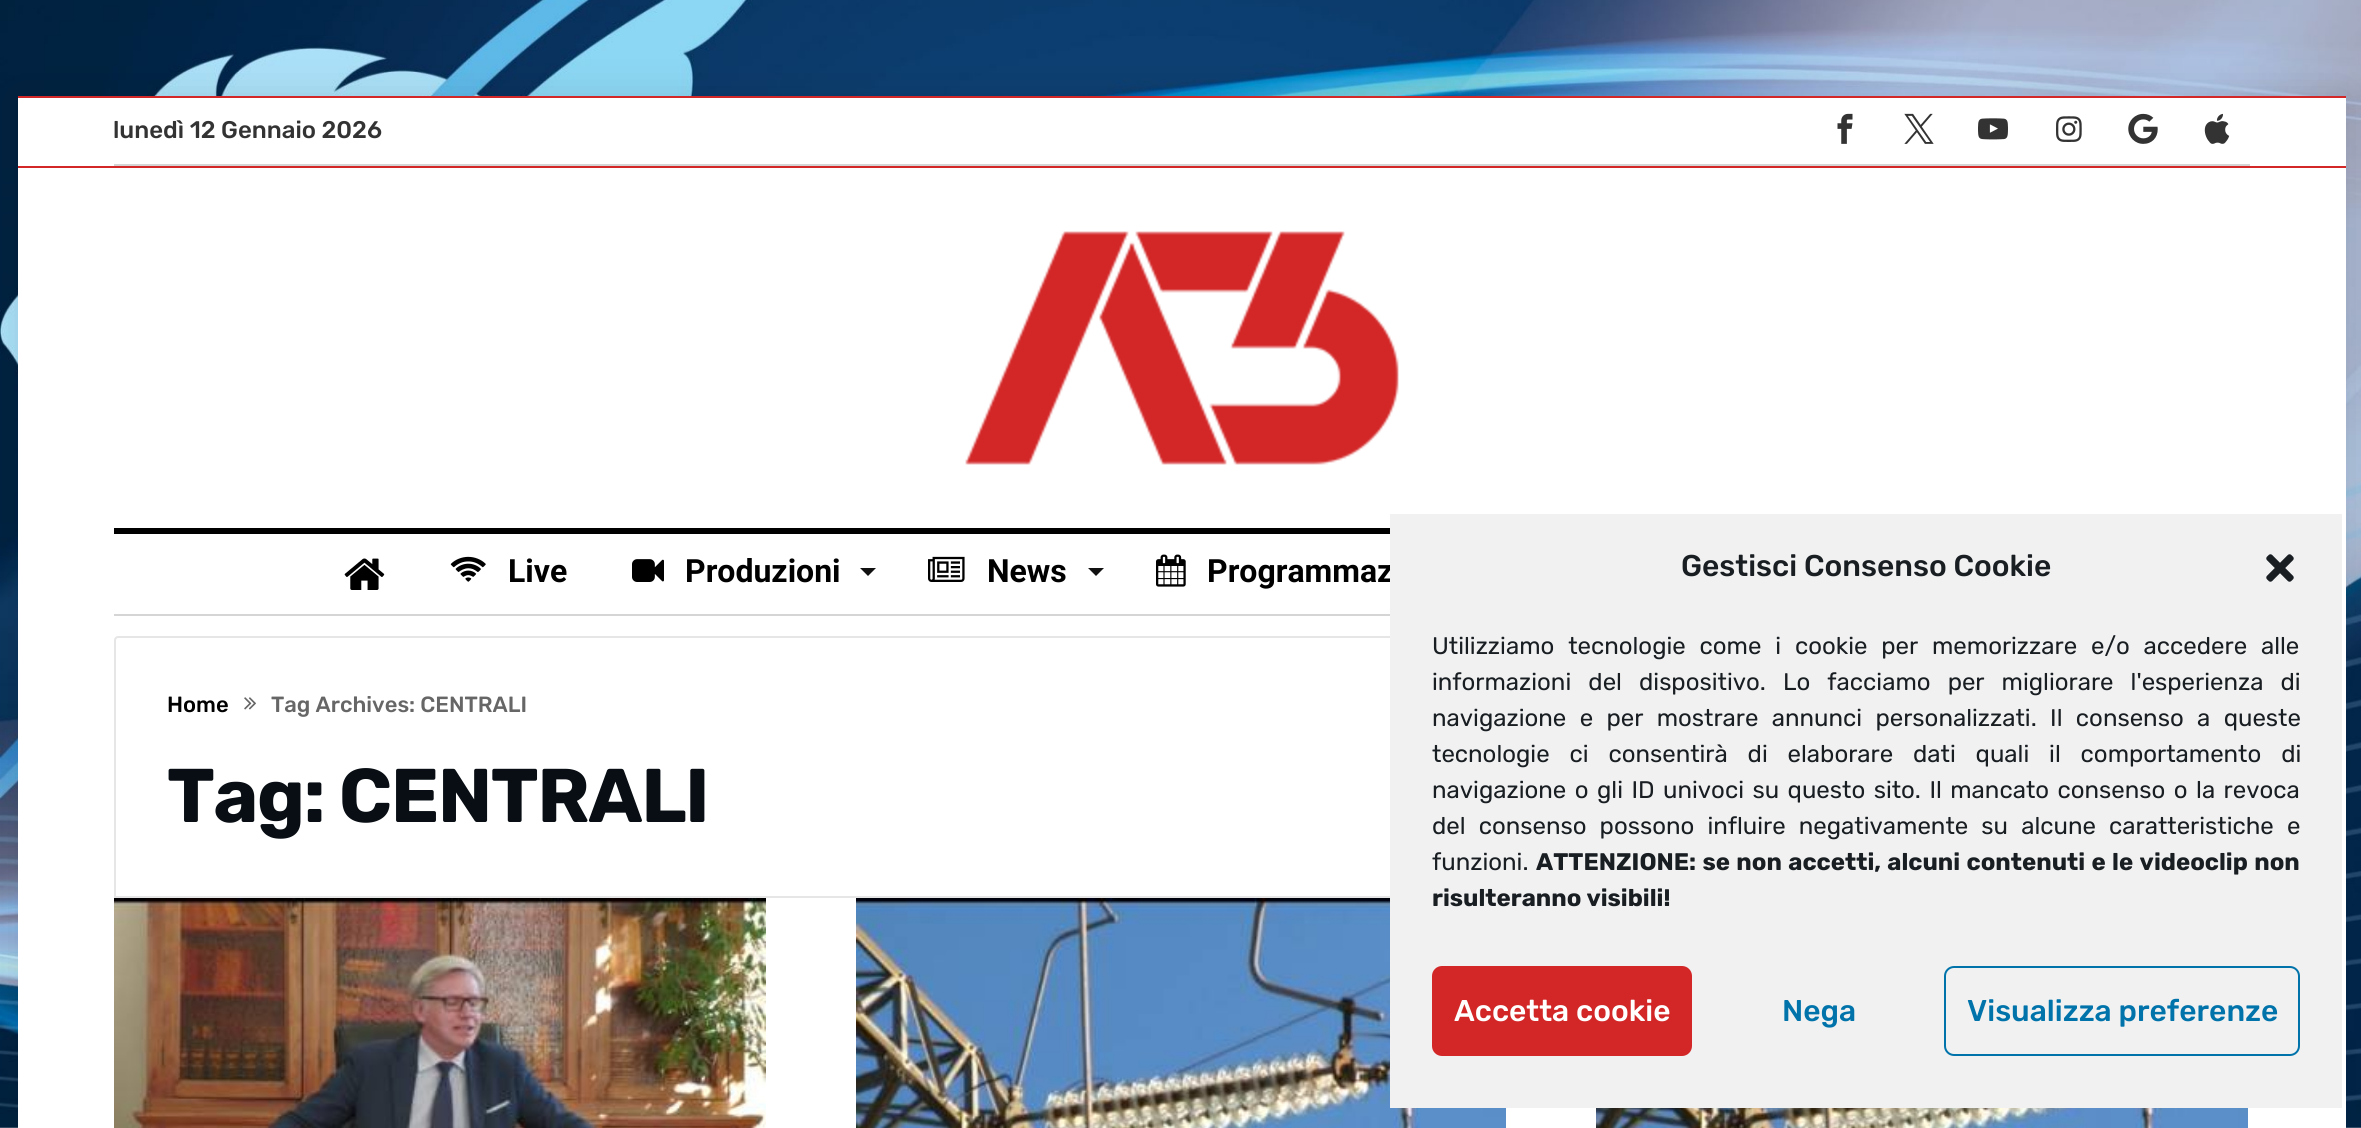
import math
import cairocffi as cairo

surface = cairo.ImageSurface(cairo.FORMAT_RGB24, 2361, 1128)
ctx = cairo.Context(surface)
options = cairo.FontOptions()
options.set_hint_metrics(cairo.HINT_METRICS_OFF)
options.set_hint_style(cairo.HINT_STYLE_NONE)
ctx.set_font_options(options)
ctx.set_miter_limit(4)


def rgb(r, g, b):
    ctx.set_source_rgb(r / 255, g / 255, b / 255)


def face(family, size, italic, bold):
    ctx.select_font_face(family, cairo.FONT_SLANT_ITALIC if italic else cairo.FONT_SLANT_NORMAL, cairo.FONT_WEIGHT_BOLD if bold else cairo.FONT_WEIGHT_NORMAL)
    ctx.set_font_size(size)


def label(x, y, s):
    ctx.move_to(x, y)
    ctx.show_text(s)


def tracked(x, y, s, letter, word):
    ctx.move_to(x, y)
    for ch in s:
        ctx.show_text(ch)
        ctx.rel_move_to(letter + word * (ch == ' '), 0)


def rect(x, y, w, h):
    ctx.rectangle(x, y, w, h)
    ctx.fill()


def rrect(x, y, w, h, r):
    ctx.new_sub_path()
    for i, (u, v) in enumerate([(x + w - r, y + h - r), (x + r, y + h - r), (x + r, y + r), (x + w - r, y + r)]):
        ctx.arc(u, v, r, i * math.pi / 2, (i + 1) * math.pi / 2)
    ctx.close_path()


def soft_shadow(x, y, w, h, r, blur, alpha):
    ctx.push_group_with_content(cairo.CONTENT_ALPHA)
    ctx.set_operator(cairo.OPERATOR_SOURCE)
    for i in range(15, -16, -2):
        e = blur * i / 6
        if min(w, h) + 2 * e > 0:
            ctx.set_source_rgba(0, 0, 0, alpha * math.erfc((i - 1) / 8.5) / 2)
            rrect(x - e, y - e, w + 2 * e, h + 2 * e, max(0, min(r + e + blur * .6, min(w, h) / 2 + e)))
            ctx.fill()
    ctx.mask(ctx.pop_group())


def image(path, x, y, w, h):
    ctx.save()
    ctx.set_source_surface(cairo.ImageSurface.create_from_png(path), x, y)
    ctx.rectangle(x, y, w, h)
    ctx.fill()
    ctx.restore()


rgb(255, 255, 255)
ctx.paint()
image('image0.png', 0, 0, 2361, 1128)
rgb(0, 0, 0)
soft_shadow(18, 96, 2328, 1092, 0, 20, 0.1)
rgb(210, 38, 39)
rect(18, 96, 2328, 2)
rgb(255, 255, 255)
rect(18, 98, 2328, 1030)
rgb(210, 38, 39)
rect(18, 166, 2328, 2)
rgb(213, 213, 213)
rect(114, 164, 2136, 2)
face('Rubik Medium', 24, 0, 0)
rgb(51, 51, 51)
label(113, 138, 'lunedì 12 Gennaio 2026')
image('image1.png', 1837, 113, 16, 31)
image('image2.png', 1904, 113, 30, 31)
image('image3.png', 1978, 118, 30, 22)
image('image4.png', 2056, 116, 26, 26)
image('image5.png', 2128, 113, 30, 31)
image('image6.png', 2204, 113, 26, 31)
image('image7.png', 965, 231, 434, 234)
rgb(0, 0, 0)
rect(114, 528, 1276, 6)
rgb(213, 213, 213)
rect(114, 614, 1276, 2)
image('image8.png', 344, 558, 41, 32)
image('image9.png', 450, 556, 36, 26)
face('Roboto', 32, 0, 1)
rgb(0, 0, 0)
label(508, 582, 'Live')
image('image10.png', 632, 559, 32, 23)
label(685, 582, 'Produzioni')
rgb(17, 17, 17)
ctx.new_path()
ctx.move_to(860, 568)
ctx.line_to(876, 568)
ctx.line_to(868, 576)
ctx.close_path()
ctx.fill()
image('image11.png', 928, 556, 37, 26)
rgb(0, 0, 0)
label(987, 582, 'News')
rgb(17, 17, 17)
ctx.new_path()
ctx.move_to(1088, 568)
ctx.line_to(1104, 568)
ctx.line_to(1096, 576)
ctx.close_path()
ctx.fill()
image('image12.png', 1156, 554, 30, 33)
rgb(0, 0, 0)
label(1207, 582, 'Programmaz')
ctx.new_path()
ctx.move_to(118, 637)
ctx.line_to(2246, 637)
ctx.curve_to(2247.5, 637, 2249, 638.5, 2249, 640)
ctx.line_to(2249, 897)
ctx.line_to(115, 897)
ctx.line_to(115, 640)
ctx.curve_to(115, 638.5, 116.5, 637, 118, 637)
ctx.close_path()
rgb(230, 230, 230)
ctx.stroke()
face('Rubik Medium', 22, 0, 0)
rgb(0, 0, 0)
label(167, 712, 'Home')
image('image13.png', 244, 697, 12, 13)
rgb(102, 102, 102)
label(271, 712, 'Tag Archives: CENTRALI')
face('Rubik', 76, 0, 1)
rgb(8, 14, 20)
tracked(167, 822, 'Tag: CENTRALI', -1.5, 0)
image('image14.png', 114, 898, 652, 230)
image('image15.png', 856, 898, 650, 230)
image('image16.png', 1596, 1108, 652, 20)
rgb(241, 241, 241)
rect(1390, 514, 952, 594)
face('Rubik Medium', 30, 0, 0)
rgb(25, 30, 35)
label(1681, 576, 'Gestisci Consenso Cookie')
image('image17.png', 2266, 554, 28, 28)
face('Rubik', 24, 0, 0)
tracked(1432, 654, 'Utilizziamo tecnologie come i cookie per memorizzare e/o accedere alle', 0, 8)
tracked(1432, 690, 'informazioni del dispositivo. Lo facciamo per migliorare l\'esperienza di', 0, 11.25)
tracked(1432, 726, 'navigazione e per mostrare annunci personalizzati. Il consenso a queste', 0, 7.5)
tracked(1432, 762, 'tecnologie ci consentirà di elaborare dati quali il comportamento di', 0, 14)
tracked(1432, 798, 'navigazione o gli ID univoci su questo sito. Il mancato consenso o la revoca', 0, 2.6)
tracked(1432, 834, 'del consenso possono influire negativamente su alcune caratteristiche e', 0, 7.25)
label(1432, 870, 'funzioni.')
face('Rubik', 24, 0, 1)
tracked(1536, 870, 'ATTENZIONE: se non accetti, alcuni contenuti e le videoclip non', 0, 1.25)
label(1432, 906, 'risulteranno visibili!')
rgb(210, 38, 39)
rrect(1433, 967, 258, 88, 9)
ctx.fill_preserve()
ctx.stroke()
face('Rubik Medium', 30, 0, 0)
rgb(255, 255, 255)
label(1454, 1021, 'Accetta cookie')
rgb(0, 115, 170)
label(1782, 1021, 'Nega')
rrect(1945, 967, 354, 88, 9)
ctx.stroke()
label(1967, 1021, 'Visualizza preferenze')
surface.write_to_png('render.png')
